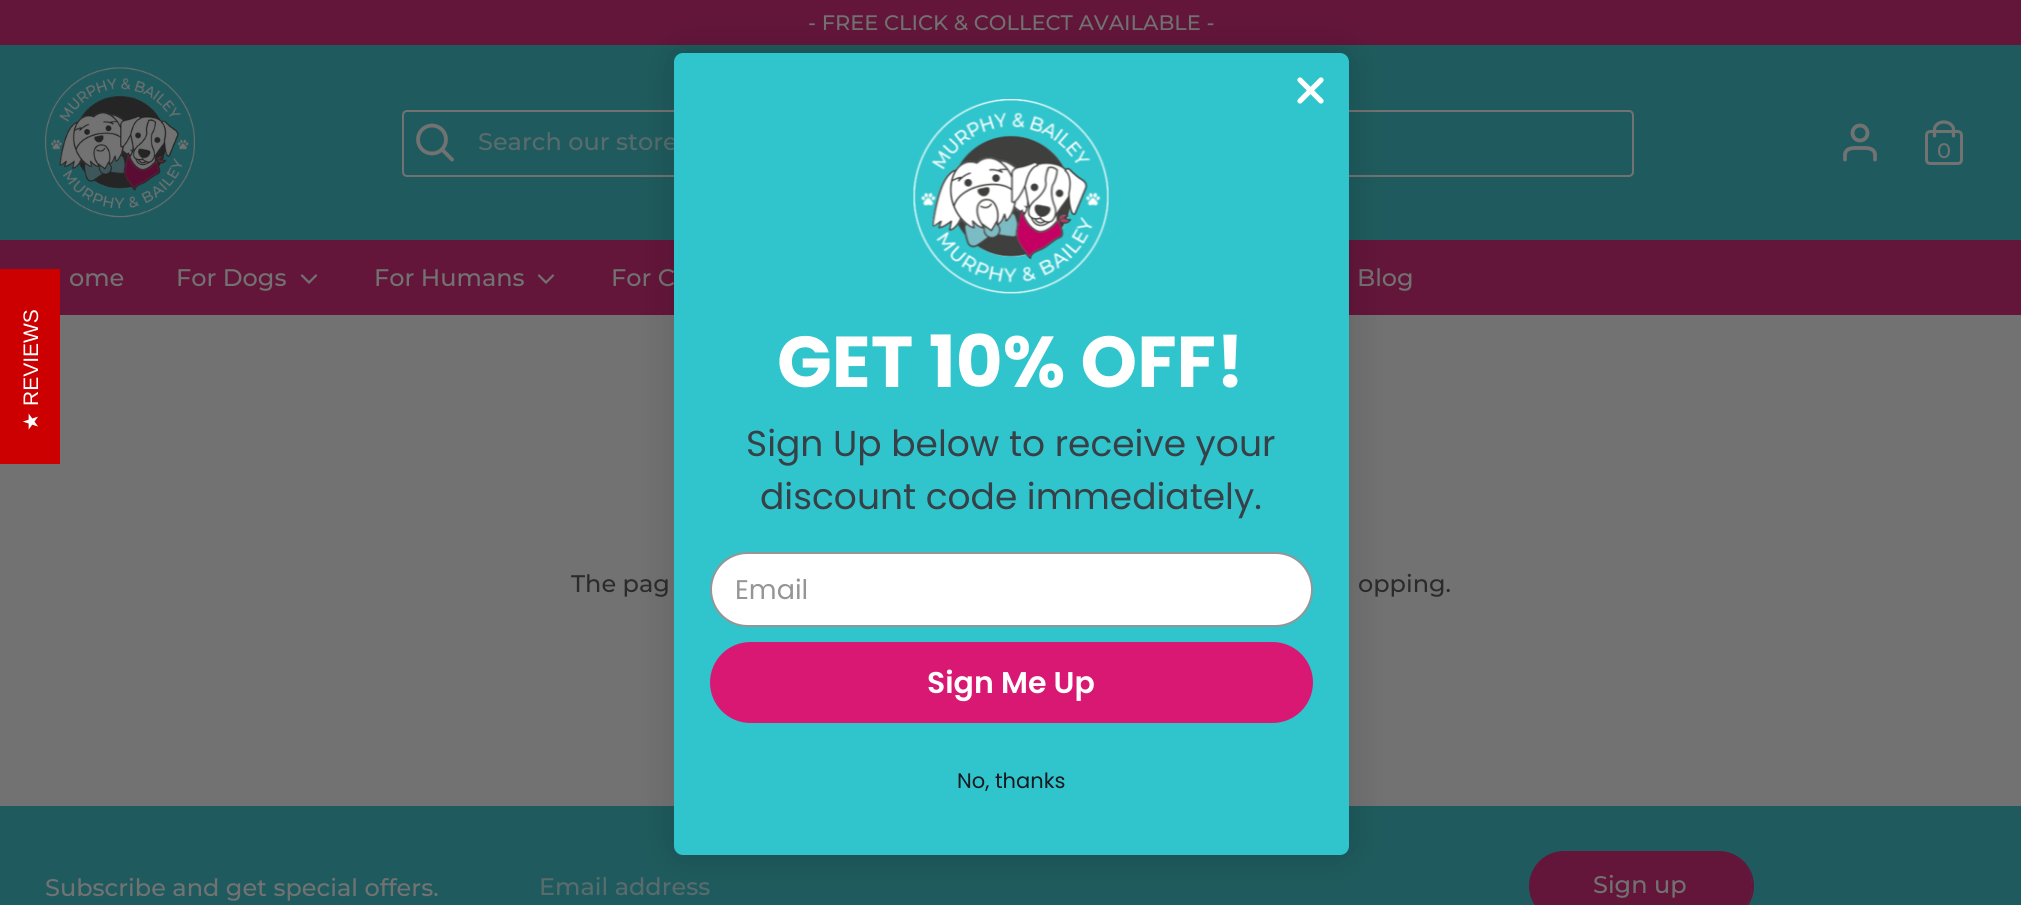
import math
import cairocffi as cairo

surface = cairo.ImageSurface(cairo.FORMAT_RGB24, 2021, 905)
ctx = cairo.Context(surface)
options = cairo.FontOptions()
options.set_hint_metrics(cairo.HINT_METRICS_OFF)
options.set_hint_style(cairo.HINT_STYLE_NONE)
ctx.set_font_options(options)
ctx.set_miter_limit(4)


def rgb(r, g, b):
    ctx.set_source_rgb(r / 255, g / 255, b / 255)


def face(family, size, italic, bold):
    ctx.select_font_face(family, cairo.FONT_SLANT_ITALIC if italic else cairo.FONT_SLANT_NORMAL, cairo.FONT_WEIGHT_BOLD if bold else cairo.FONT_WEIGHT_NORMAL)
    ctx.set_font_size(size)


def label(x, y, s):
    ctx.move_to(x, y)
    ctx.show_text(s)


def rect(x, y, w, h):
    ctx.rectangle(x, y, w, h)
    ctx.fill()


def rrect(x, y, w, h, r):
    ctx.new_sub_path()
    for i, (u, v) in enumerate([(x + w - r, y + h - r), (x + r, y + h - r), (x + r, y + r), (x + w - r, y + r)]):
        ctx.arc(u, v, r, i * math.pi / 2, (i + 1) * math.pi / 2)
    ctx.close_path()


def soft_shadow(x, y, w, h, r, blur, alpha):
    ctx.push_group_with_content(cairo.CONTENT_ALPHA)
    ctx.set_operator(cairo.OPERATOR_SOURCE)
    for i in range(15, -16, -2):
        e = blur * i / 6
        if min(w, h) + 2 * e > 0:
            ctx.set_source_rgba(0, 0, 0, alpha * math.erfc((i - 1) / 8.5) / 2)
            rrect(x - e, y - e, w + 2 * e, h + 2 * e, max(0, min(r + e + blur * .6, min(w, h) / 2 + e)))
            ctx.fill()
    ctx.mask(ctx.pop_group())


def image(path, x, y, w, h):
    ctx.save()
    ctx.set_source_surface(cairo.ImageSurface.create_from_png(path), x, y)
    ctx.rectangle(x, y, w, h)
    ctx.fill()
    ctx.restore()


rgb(114, 114, 114)
ctx.paint()
rgb(99, 22, 58)
rect(0, 0, 2021, 45)
face('Montserrat Thin', 21, 0, 0)
rgb(114, 114, 114)
label(808, 30, '- FREE CLICK & COLLECT AVAILABLE -')
rgb(31, 91, 94)
rect(0, 45, 2021, 195)
image('image0.png', 45, 67, 150, 151)
rrect(403, 111, 1230, 65, 4)
rgb(114, 114, 114)
ctx.stroke()
ctx.arc(432, 139.5, 14, 0, 2 * math.pi)
ctx.set_line_width(3.8)
ctx.stroke()
ctx.new_path()
ctx.move_to(452, 159.5)
ctx.line_to(442, 149.5)
ctx.set_line_cap(cairo.LINE_CAP_ROUND)
ctx.stroke()
face('Montserrat Thin', 24, 0, 0)
rgb(89, 107, 108)
label(478, 150, 'Search our store')
ctx.new_path()
ctx.move_to(1875, 159.5)
ctx.line_to(1875, 154)
ctx.curve_to(1873.5, 147, 1865.5, 148, 1860, 148)
ctx.curve_to(1854.5, 148, 1846.5, 147, 1845, 154)
ctx.line_to(1845, 159.5)
rgb(114, 114, 114)
ctx.stroke()
ctx.arc(1860, 133, 7.5, 0, 2 * math.pi)
ctx.set_line_cap(cairo.LINE_CAP_BUTT)
ctx.stroke()
rrect(1926.5, 131.5, 35, 32, 3.5)
ctx.set_line_width(3)
ctx.stroke()
ctx.new_path()
ctx.move_to(1934.5, 136)
ctx.line_to(1934.5, 129.5)
ctx.curve_to(1934.5, 125.5, 1938.5, 122, 1944, 122)
ctx.curve_to(1949, 122, 1953.5, 125.5, 1953.5, 129.5)
ctx.line_to(1953.5, 136)
ctx.set_line_width(3.2)
ctx.set_line_cap(cairo.LINE_CAP_ROUND)
ctx.stroke()
face('Montserrat Thin', 21, 0, 0)
label(1937, 158, '0')
rgb(99, 22, 58)
rect(0, 240, 2021, 75)
face('Montserrat Thin', 24, 0, 0)
rgb(114, 114, 114)
label(69, 286, 'ome')
label(176, 286, 'For Dogs')
ctx.new_path()
ctx.move_to(302, 275.5)
ctx.line_to(309, 282.5)
ctx.line_to(316, 275.5)
ctx.set_line_width(2.2)
ctx.stroke()
label(374, 286, 'For Humans')
ctx.new_path()
ctx.move_to(539, 275.5)
ctx.line_to(546, 282.5)
ctx.line_to(553, 275.5)
ctx.stroke()
label(611, 286, 'For C')
label(1357, 286, 'Blog')
rgb(204, 0, 0)
rect(0, 269, 60, 195)
face('Liberation Sans', 21, 0, 0)
rgb(255, 255, 255)
ctx.save()
ctx.translate(38, 406)
ctx.rotate(-90 * math.pi / 180)
label(0, 0, 'REVIEWS')
ctx.restore()
face('DejaVu Sans', 21, 0, 0)
ctx.save()
ctx.translate(38, 431)
ctx.rotate(-90 * math.pi / 180)
label(0, 0, '★')
ctx.restore()
rgb(31, 91, 94)
rect(0, 806, 2021, 99)
rgb(0, 0, 0)
soft_shadow(674, 53, 675, 802, 9, 22.5, 0.15)
rgb(48, 197, 204)
rrect(674, 53, 675, 802, 9)
ctx.fill()
ctx.new_path()
ctx.move_to(1300, 80)
ctx.line_to(1321, 101)
ctx.move_to(1300, 101)
ctx.line_to(1321, 80)
ctx.close_path()
rgb(255, 255, 255)
ctx.set_line_width(5.2)
ctx.set_line_join(cairo.LINE_JOIN_ROUND)
ctx.stroke()
image('image1.png', 913, 99, 196, 195)
face('Poppins', 72, 0, 1)
label(777, 387, 'GET 10% OFF!')
face('Poppins', 36, 0, 0)
rgb(55, 63, 71)
label(746, 456, 'Sign Up below to receive your')
label(760, 509, 'discount code immediately.')
rgb(255, 255, 255)
rrect(711, 553, 601, 73, 36.5)
ctx.fill_preserve()
rgb(148, 149, 150)
ctx.set_line_width(2)
ctx.set_line_cap(cairo.LINE_CAP_BUTT)
ctx.set_line_join(cairo.LINE_JOIN_MITER)
ctx.stroke()
face('Poppins', 27, 0, 0)
label(735, 599, 'Email')
rgb(217, 24, 115)
rrect(710, 642, 603, 81, 40.5)
ctx.fill()
face('Poppins SemiBold', 30, 0, 0)
rgb(255, 255, 255)
label(927, 693, 'Sign Me Up')
face('Poppins', 21, 0, 0)
rgb(22, 27, 32)
label(957, 788, 'No, thanks')
face('Montserrat Thin', 24, 0, 0)
rgb(43, 43, 43)
label(571, 592, 'The pag')
label(1358, 592, 'opping.')
rgb(114, 114, 114)
label(45, 896, 'Subscribe and get special offers.')
rgb(89, 107, 108)
label(539, 895, 'Email address')
rrect(1530, 852, 223, 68, 34)
rgb(99, 22, 58)
ctx.stroke()
rrect(1530, 852, 222, 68, 34)
ctx.fill()
rgb(114, 114, 114)
label(1593, 893, 'Sign up')
surface.write_to_png('render.png')
